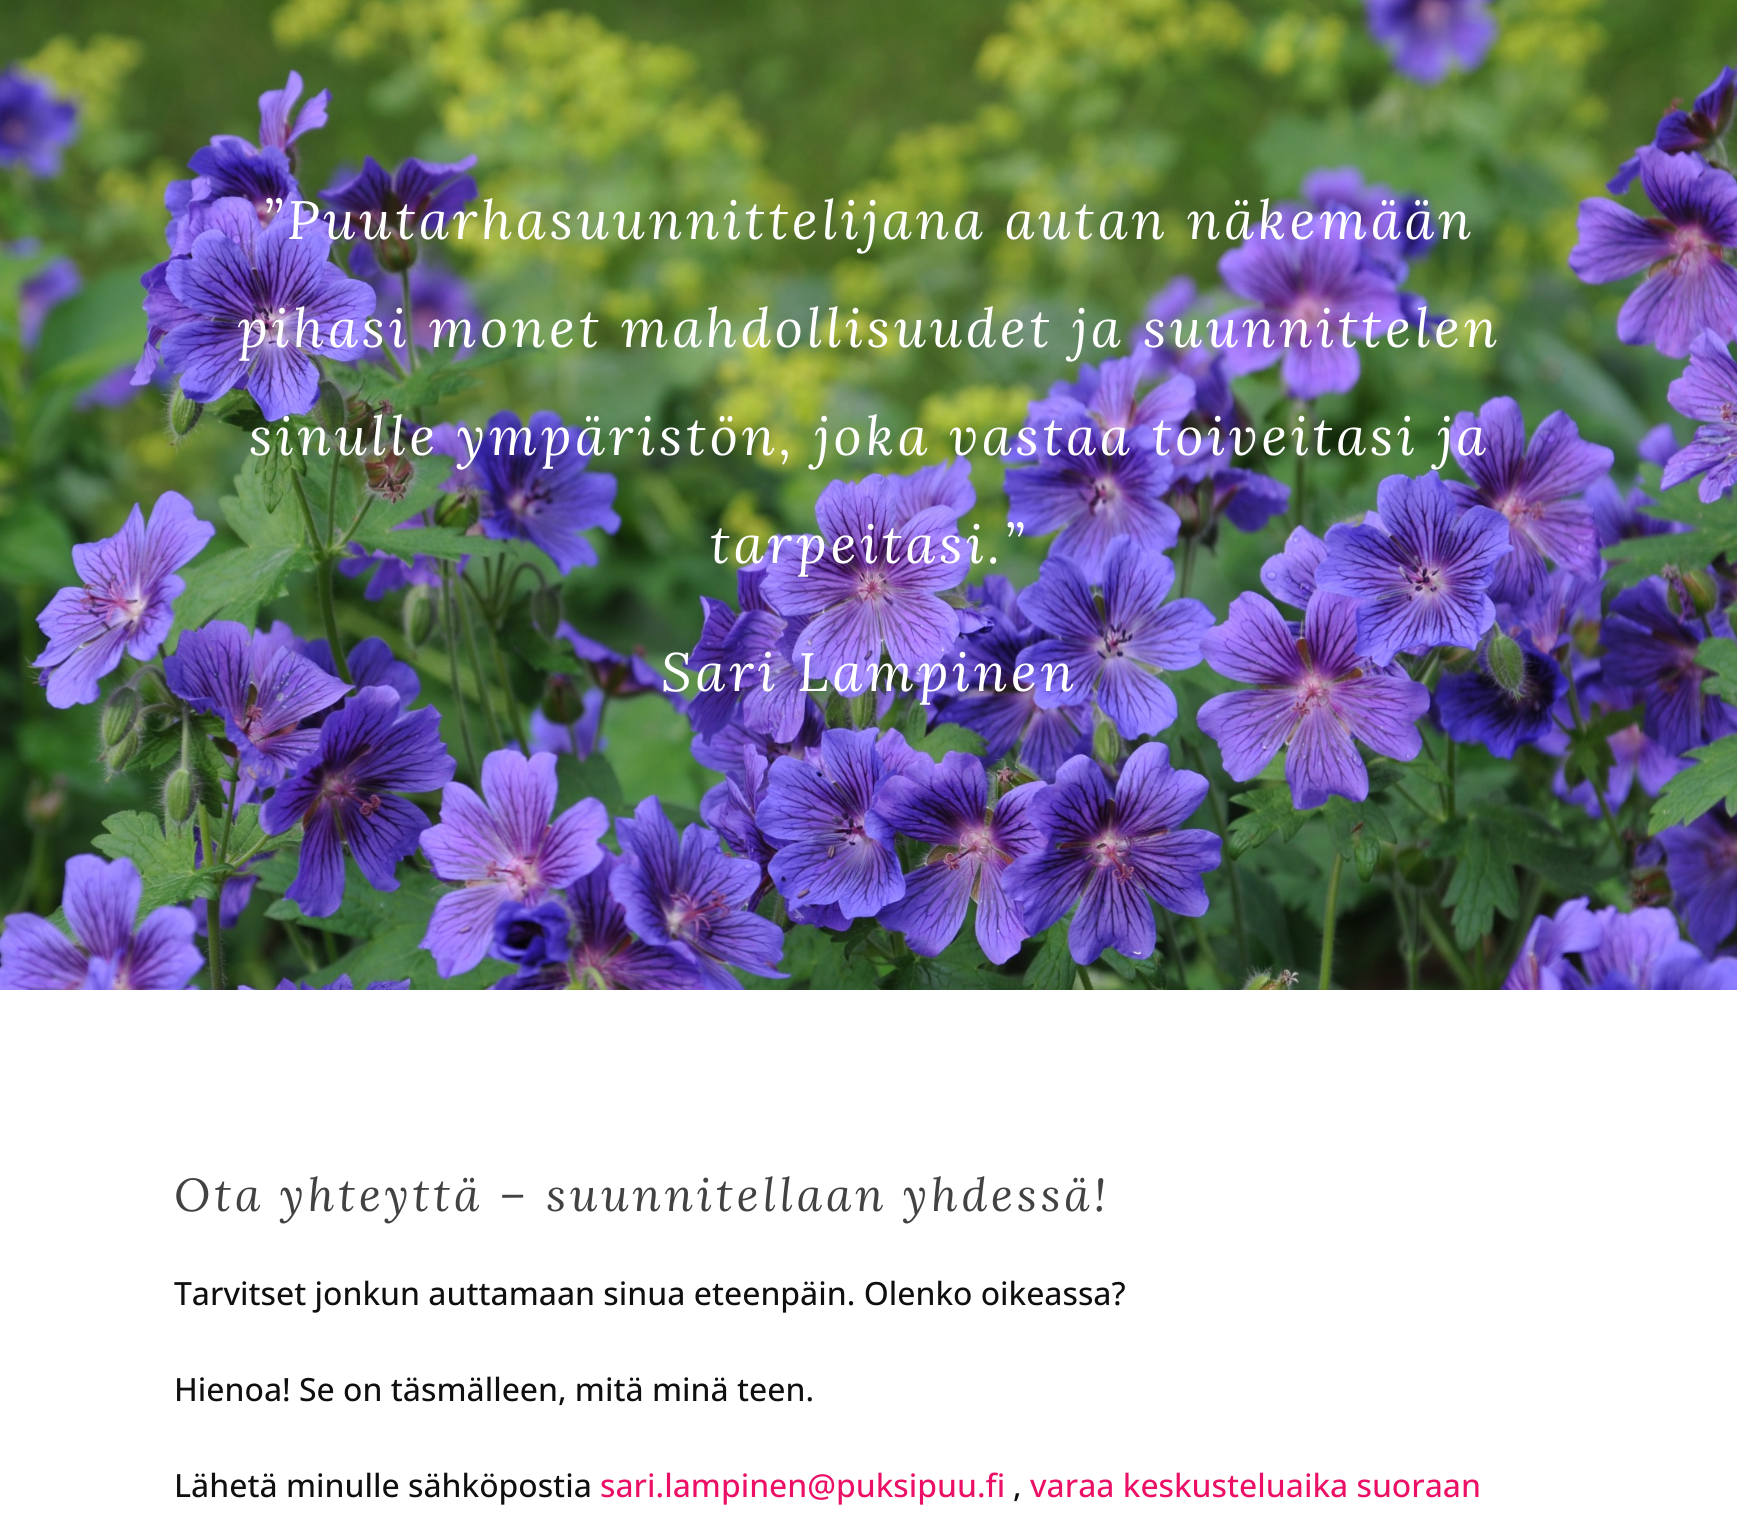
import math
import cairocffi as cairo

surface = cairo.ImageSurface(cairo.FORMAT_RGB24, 1737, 1525)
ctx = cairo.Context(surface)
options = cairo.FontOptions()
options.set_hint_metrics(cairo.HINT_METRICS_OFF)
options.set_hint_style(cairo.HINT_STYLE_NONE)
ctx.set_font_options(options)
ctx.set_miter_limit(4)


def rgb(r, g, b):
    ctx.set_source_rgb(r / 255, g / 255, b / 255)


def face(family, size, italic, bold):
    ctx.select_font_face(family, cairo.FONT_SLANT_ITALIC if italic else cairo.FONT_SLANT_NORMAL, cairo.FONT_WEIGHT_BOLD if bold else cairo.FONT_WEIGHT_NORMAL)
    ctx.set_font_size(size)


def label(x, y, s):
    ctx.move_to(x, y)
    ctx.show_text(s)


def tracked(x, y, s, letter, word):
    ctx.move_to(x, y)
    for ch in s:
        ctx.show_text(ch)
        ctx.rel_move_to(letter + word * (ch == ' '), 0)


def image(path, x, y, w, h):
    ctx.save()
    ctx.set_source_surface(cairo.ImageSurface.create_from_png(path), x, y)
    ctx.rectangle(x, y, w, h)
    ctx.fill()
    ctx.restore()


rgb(255, 255, 255)
ctx.paint()
image('image0.png', 0, 0, 1737, 990)
face('Lora', 54, 1, 0)
rgb(255, 255, 255)
tracked(263, 239, '”Puutarhasuunnittelijana autan näkemään', 4, 0)
tracked(237, 347, 'pihasi monet mahdollisuudet ja suunnittelen', 4, 0)
tracked(249, 455, 'sinulle ympäristön, joka vastaa toiveitasi ja', 4, 0)
tracked(710, 563, 'tarpeitasi.”', 4, 0)
tracked(661, 691, 'Sari Lampinen', 4, 0)
face('Lora', 46, 1, 0)
rgb(66, 66, 66)
tracked(174, 1211, 'Ota yhteyttä – suunnitellaan yhdessä!', 4, 0)
face('Open Sans Medium', 32, 0, 0)
rgb(15, 15, 15)
label(174, 1305, 'Tarvitset jonkun auttamaan sinua eteenpäin. Olenko oikeassa?')
label(174, 1401, 'Hienoa! Se on täsmälleen, mitä minä teen.')
label(174, 1497, 'Lähetä minulle sähköpostia')
rgb(236, 15, 102)
label(600, 1497, 'sari.lampinen@puksipuu.fi')
rgb(15, 15, 15)
label(1013, 1497, ',')
rgb(236, 15, 102)
label(1030, 1497, 'varaa keskusteluaika suoraan')
surface.write_to_png('render.png')
